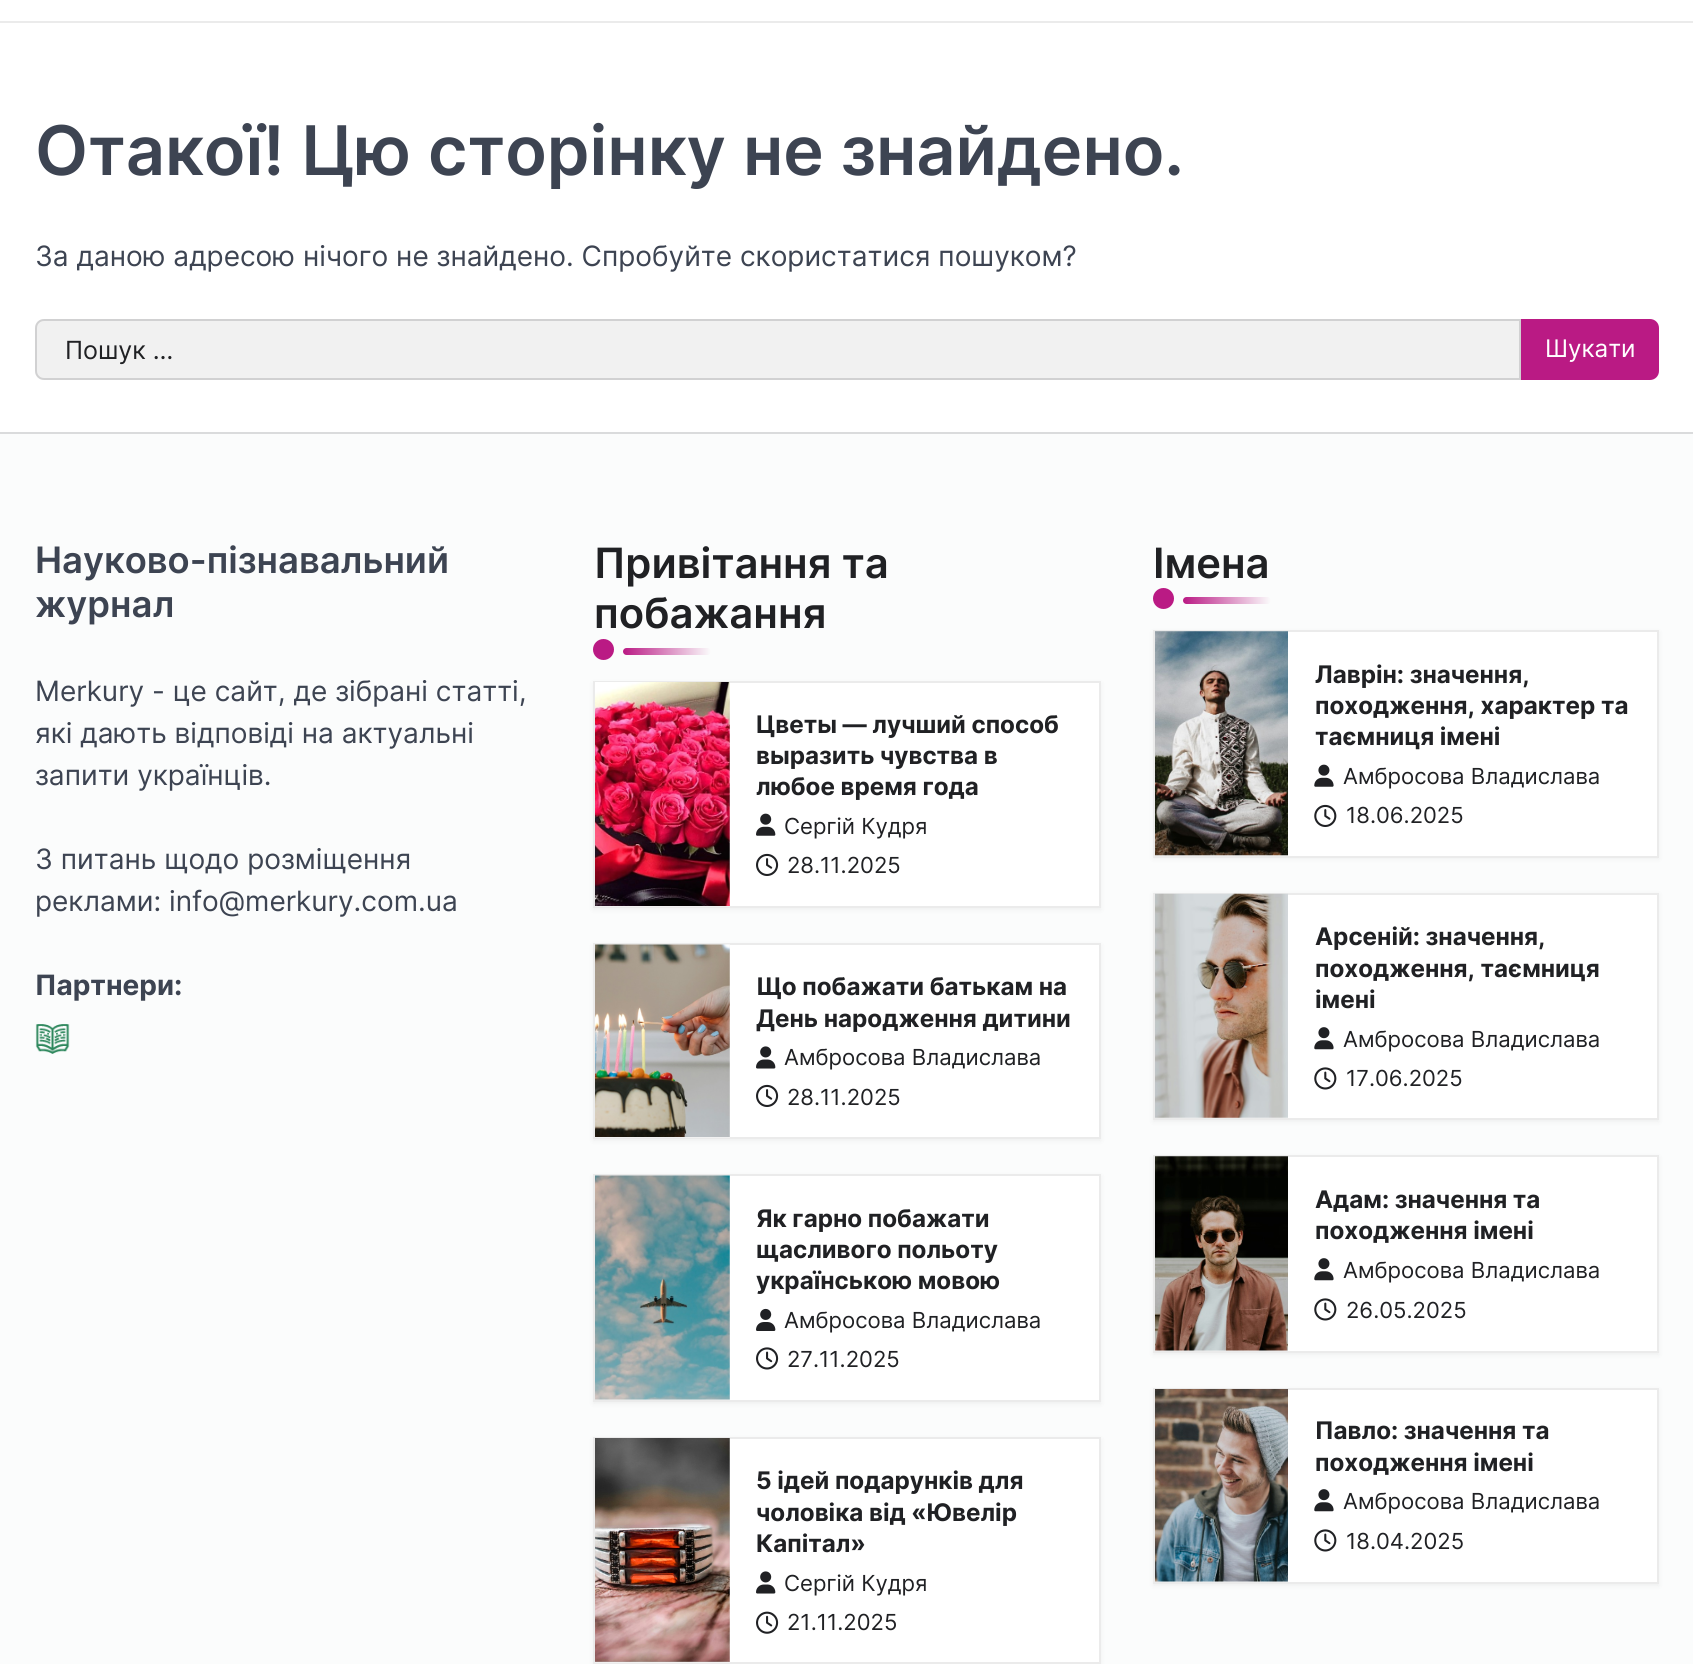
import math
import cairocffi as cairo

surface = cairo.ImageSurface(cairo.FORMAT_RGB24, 1693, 1664)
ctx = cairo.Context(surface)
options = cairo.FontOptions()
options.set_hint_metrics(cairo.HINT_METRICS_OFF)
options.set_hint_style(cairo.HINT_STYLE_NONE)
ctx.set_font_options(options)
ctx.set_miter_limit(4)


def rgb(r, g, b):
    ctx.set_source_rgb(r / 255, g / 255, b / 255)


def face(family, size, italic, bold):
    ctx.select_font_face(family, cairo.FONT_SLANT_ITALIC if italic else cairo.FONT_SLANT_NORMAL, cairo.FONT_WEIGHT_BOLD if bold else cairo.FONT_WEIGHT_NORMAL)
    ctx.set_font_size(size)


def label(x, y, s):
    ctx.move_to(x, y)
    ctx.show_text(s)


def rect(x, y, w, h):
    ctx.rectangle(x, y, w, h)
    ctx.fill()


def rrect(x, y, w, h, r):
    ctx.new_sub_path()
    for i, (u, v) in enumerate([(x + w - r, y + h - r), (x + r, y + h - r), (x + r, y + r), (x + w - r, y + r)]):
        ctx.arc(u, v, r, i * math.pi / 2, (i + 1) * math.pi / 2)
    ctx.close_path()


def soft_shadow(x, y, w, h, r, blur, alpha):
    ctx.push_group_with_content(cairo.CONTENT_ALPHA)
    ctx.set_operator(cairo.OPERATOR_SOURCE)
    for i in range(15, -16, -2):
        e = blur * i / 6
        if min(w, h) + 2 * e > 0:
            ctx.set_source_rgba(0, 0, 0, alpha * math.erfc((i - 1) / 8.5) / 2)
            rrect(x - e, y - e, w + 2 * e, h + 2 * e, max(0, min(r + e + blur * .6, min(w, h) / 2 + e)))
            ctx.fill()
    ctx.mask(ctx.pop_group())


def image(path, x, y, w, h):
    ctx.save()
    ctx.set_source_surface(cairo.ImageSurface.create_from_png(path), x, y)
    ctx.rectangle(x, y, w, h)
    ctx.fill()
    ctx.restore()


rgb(255, 255, 255)
ctx.paint()
rgb(235, 235, 235)
rect(0, 21, 1693, 2)
face('Inter SemiBold', 68.4, 0, 0)
rgb(61, 68, 82)
label(35, 175, 'Отакої! Цю сторінку не знайдено.')
face('Inter', 28, 0, 0)
label(35, 266, 'За даною адресою нічого не знайдено. Спробуйте скористатися пошуком?')
rgb(241, 241, 241)
ctx.new_path()
ctx.move_to(44, 319)
ctx.line_to(1521, 319)
ctx.line_to(1521, 380)
ctx.line_to(44, 380)
ctx.curve_to(39, 380, 35, 376, 35, 371)
ctx.line_to(35, 328)
ctx.curve_to(35, 323, 39, 319, 44, 319)
ctx.close_path()
ctx.fill()
ctx.new_path()
ctx.move_to(44, 320)
ctx.line_to(1520, 320)
ctx.line_to(1520, 379)
ctx.line_to(44, 379)
ctx.curve_to(39.5, 379, 36, 375.5, 36, 371)
ctx.line_to(36, 328)
ctx.curve_to(36, 323.5, 39.5, 320, 44, 320)
ctx.close_path()
ctx.set_source_rgba(0.125, 0.129, 0.141, 0.15)
ctx.stroke()
face('Inter', 25, 0, 0)
rgb(32, 33, 36)
label(65, 359, 'Пошук …')
rgb(186, 26, 132)
ctx.new_path()
ctx.move_to(1521, 319)
ctx.line_to(1650, 319)
ctx.curve_to(1655, 319, 1659, 323, 1659, 328)
ctx.line_to(1659, 371)
ctx.curve_to(1659, 376, 1655, 380, 1650, 380)
ctx.line_to(1521, 380)
ctx.close_path()
ctx.fill()
face('Inter', 24.2, 0, 0)
rgb(255, 255, 255)
label(1545, 357, 'Шукати')
rgb(251, 252, 252)
rect(0, 434, 1693, 1230)
rgb(218, 219, 220)
rect(0, 432, 1693, 2)
face('Inter SemiBold', 36.4, 0, 0)
rgb(61, 68, 82)
label(35, 573, 'Науково-пізнавальний')
label(35, 617, 'журнал')
face('Inter', 28, 0, 0)
label(35, 701, 'Merkury - це сайт, де зібрані статті,')
label(35, 743, 'які дають відповіді на актуальні')
label(35, 785, 'запити українців.')
label(35, 869, 'З питань щодо розміщення')
label(35, 911, 'реклами: info@merkury.com.ua')
face('Inter', 28, 0, 1)
label(35, 995, 'Партнери:')
image('image0.png', 35, 1024, 35, 30)
face('Inter SemiBold', 41.75, 0, 0)
rgb(32, 33, 36)
label(594, 578, 'Привітання та')
label(594, 628, 'побажання')
rgb(186, 26, 132)
ctx.new_path()
ctx.arc(603.5, 649.5, 10.5, 0, 2 * math.pi)
ctx.fill()
gradient = cairo.LinearGradient(623, 651, 711, 651)
gradient.add_color_stop_rgba(0, 0.729, 0.102, 0.518, 1)
gradient.add_color_stop_rgba(1, 0.984, 0.988, 0.988, 1)
ctx.set_source(gradient)
rrect(623, 648, 88, 7, 3.5)
ctx.fill()
rgb(0, 0, 0)
soft_shadow(593, 683, 508, 227, 0, 2.5, 0.05)
rgb(255, 255, 255)
rect(730, 683, 369, 223)
ctx.rectangle(594, 682, 506, 225)
rgb(235, 235, 235)
ctx.stroke()
rgb(241, 241, 241)
rect(595, 683, 135, 224)
image('image1.png', 595, 682, 135, 224)
face('Inter', 24.2, 0, 1)
rgb(32, 33, 36)
label(756, 733, 'Цветы — лучший способ')
label(756, 764, 'выразить чувства в')
label(756, 795, 'любое время года')
image('image2.png', 756, 813, 20, 23)
face('Inter', 22.1, 0, 0)
label(784, 834, 'Сергій Кудря')
image('image3.png', 756, 853, 23, 23)
label(787, 873, '28.11.2025')
rgb(0, 0, 0)
soft_shadow(593, 945, 508, 196, 0, 2.5, 0.05)
rgb(255, 255, 255)
rect(730, 945, 369, 192)
ctx.rectangle(594, 944, 506, 194)
rgb(235, 235, 235)
ctx.stroke()
rgb(241, 241, 241)
rect(595, 945, 135, 193)
image('image4.png', 595, 944, 135, 193)
face('Inter', 24.2, 0, 1)
rgb(32, 33, 36)
label(756, 995, 'Що побажати батькам на')
label(756, 1027, 'День народження дитини')
image('image5.png', 756, 1046, 20, 23)
face('Inter', 22.1, 0, 0)
label(784, 1065, 'Амбросова Владислава')
image('image3.png', 756, 1084, 23, 23)
label(787, 1105, '28.11.2025')
rgb(0, 0, 0)
soft_shadow(593, 1176, 508, 228, 0, 2.5, 0.05)
rgb(255, 255, 255)
rect(730, 1176, 369, 224)
ctx.rectangle(594, 1175, 506, 226)
rgb(235, 235, 235)
ctx.stroke()
rgb(241, 241, 241)
rect(595, 1176, 135, 2)
image('image6.png', 595, 1175, 135, 225)
face('Inter', 24.2, 0, 1)
rgb(32, 33, 36)
label(756, 1227, 'Як гарно побажати')
label(756, 1258, 'щасливого польоту')
label(756, 1289, 'українською мовою')
image('image7.png', 756, 1308, 20, 23)
face('Inter', 22.1, 0, 0)
label(784, 1328, 'Амбросова Владислава')
image('image8.png', 756, 1347, 23, 23)
label(787, 1367, '27.11.2025')
rgb(0, 0, 0)
soft_shadow(593, 1439, 508, 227, 0, 2.5, 0.05)
rgb(255, 255, 255)
rect(730, 1439, 369, 223)
ctx.rectangle(594, 1438, 506, 225)
rgb(235, 235, 235)
ctx.stroke()
rgb(241, 241, 241)
rect(595, 1439, 135, 224)
image('image9.png', 595, 1438, 135, 224)
face('Inter', 24.2, 0, 1)
rgb(32, 33, 36)
label(756, 1489, '5 ідей подарунків для')
label(756, 1521, 'чоловіка від «Ювелір')
label(756, 1552, 'Капітал»')
image('image5.png', 756, 1571, 20, 23)
face('Inter', 22.1, 0, 0)
label(784, 1591, 'Сергій Кудря')
image('image10.png', 756, 1611, 23, 23)
label(787, 1630, '21.11.2025')
face('Inter SemiBold', 41.75, 0, 0)
label(1153, 578, 'Імена')
rgb(186, 26, 132)
ctx.new_path()
ctx.arc(1163.5, 598.5, 10.5, 0, 2 * math.pi)
ctx.fill()
gradient = cairo.LinearGradient(1183, 600, 1271, 600)
gradient.add_color_stop_rgba(0, 0.729, 0.102, 0.518, 1)
gradient.add_color_stop_rgba(1, 0.984, 0.988, 0.988, 1)
ctx.set_source(gradient)
rrect(1183, 597, 88, 7, 3.5)
ctx.fill()
rgb(0, 0, 0)
soft_shadow(1153, 632, 506, 227, 0, 2.5, 0.05)
rgb(255, 255, 255)
rect(1288, 632, 369, 224)
ctx.rectangle(1154, 631, 504, 226)
rgb(235, 235, 235)
ctx.stroke()
image('image11.png', 1155, 631, 133, 225)
face('Inter', 24.2, 0, 1)
rgb(32, 33, 36)
label(1315, 683, 'Лаврін: значення,')
label(1315, 714, 'походження, характер та')
label(1315, 745, 'таємниця імені')
image('image12.png', 1314, 764, 20, 23)
face('Inter', 22.1, 0, 0)
label(1343, 784, 'Амбросова Владислава')
image('image13.png', 1314, 804, 23, 23)
label(1346, 823, '18.06.2025')
rgb(0, 0, 0)
soft_shadow(1153, 894, 506, 228, 0, 2.5, 0.05)
rgb(255, 255, 255)
ctx.rectangle(1154, 894, 504, 225)
ctx.fill_preserve()
rgb(235, 235, 235)
ctx.stroke()
image('image14.png', 1155, 893, 133, 225)
face('Inter', 24.2, 0, 1)
rgb(32, 33, 36)
label(1315, 945, 'Арсеній: значення,')
label(1315, 977, 'походження, таємниця')
label(1315, 1008, 'імені')
image('image15.png', 1314, 1027, 20, 23)
face('Inter', 22.1, 0, 0)
label(1343, 1047, 'Амбросова Владислава')
image('image16.png', 1314, 1067, 23, 23)
label(1346, 1086, '17.06.2025')
rgb(0, 0, 0)
soft_shadow(1153, 1157, 506, 198, 0, 2.5, 0.05)
rgb(255, 255, 255)
rect(1288, 1157, 369, 194)
ctx.rectangle(1154, 1156, 504, 196)
rgb(235, 235, 235)
ctx.stroke()
image('image17.png', 1155, 1156, 133, 195)
face('Inter', 24.2, 0, 1)
rgb(32, 33, 36)
label(1315, 1208, 'Адам: значення та')
label(1315, 1239, 'походження імені')
image('image15.png', 1314, 1258, 20, 23)
face('Inter', 22.1, 0, 0)
label(1343, 1278, 'Амбросова Владислава')
image('image16.png', 1314, 1298, 23, 23)
label(1346, 1318, '26.05.2025')
rgb(0, 0, 0)
soft_shadow(1153, 1390, 506, 196, 0, 2.5, 0.05)
rgb(255, 255, 255)
rect(1288, 1390, 369, 192)
ctx.rectangle(1154, 1389, 504, 194)
rgb(235, 235, 235)
ctx.stroke()
image('image18.png', 1155, 1389, 133, 193)
face('Inter', 24.2, 0, 1)
rgb(32, 33, 36)
label(1315, 1439, 'Павло: значення та')
label(1315, 1471, 'походження імені')
image('image15.png', 1314, 1489, 20, 23)
face('Inter', 22.1, 0, 0)
label(1343, 1509, 'Амбросова Владислава')
image('image16.png', 1314, 1529, 23, 23)
label(1346, 1549, '18.04.2025')
surface.write_to_png('render.png')
